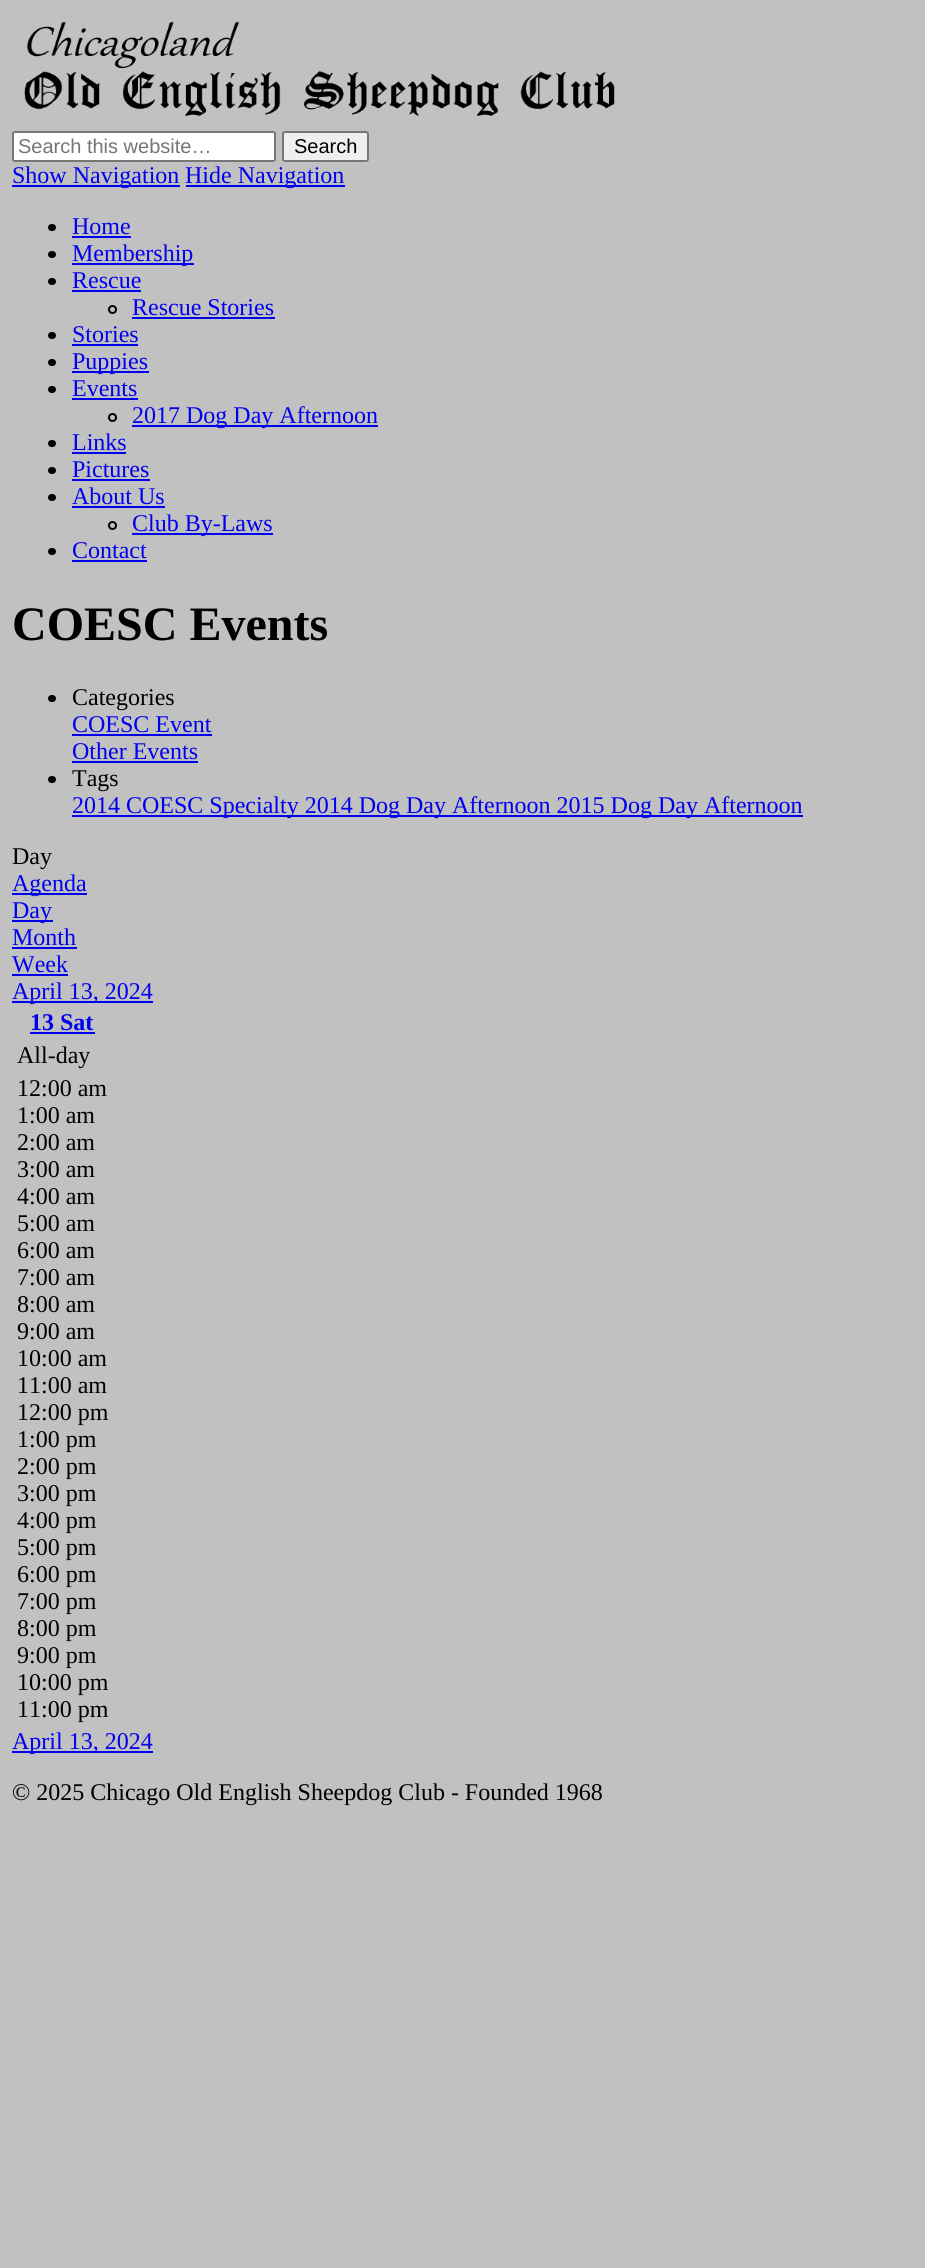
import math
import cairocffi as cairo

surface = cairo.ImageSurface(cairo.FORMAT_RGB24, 925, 2268)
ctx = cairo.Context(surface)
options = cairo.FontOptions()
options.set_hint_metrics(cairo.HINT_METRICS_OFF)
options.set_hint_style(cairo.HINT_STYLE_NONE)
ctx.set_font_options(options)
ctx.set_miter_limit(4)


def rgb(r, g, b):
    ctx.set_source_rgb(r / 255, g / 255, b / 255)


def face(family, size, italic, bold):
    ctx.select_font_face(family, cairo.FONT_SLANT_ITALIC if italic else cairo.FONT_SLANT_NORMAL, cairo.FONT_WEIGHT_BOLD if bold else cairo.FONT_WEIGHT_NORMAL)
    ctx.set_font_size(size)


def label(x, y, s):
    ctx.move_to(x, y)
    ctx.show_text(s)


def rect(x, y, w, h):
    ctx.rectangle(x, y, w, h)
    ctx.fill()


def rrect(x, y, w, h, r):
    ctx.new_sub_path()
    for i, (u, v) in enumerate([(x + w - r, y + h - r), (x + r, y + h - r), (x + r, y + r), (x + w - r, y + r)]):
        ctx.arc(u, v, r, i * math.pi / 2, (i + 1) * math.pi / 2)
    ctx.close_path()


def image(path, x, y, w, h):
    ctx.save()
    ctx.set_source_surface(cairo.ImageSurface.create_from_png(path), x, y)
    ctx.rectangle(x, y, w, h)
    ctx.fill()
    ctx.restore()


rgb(193, 193, 193)
ctx.paint()
image('image0.png', 24, 21, 591, 96)
rgb(255, 255, 255)
rrect(13, 132, 262, 29, 2)
ctx.fill_preserve()
rgb(118, 118, 118)
ctx.stroke()
face('Liberation Sans', 20, 0, 0)
rgb(117, 117, 117)
label(18, 153, 'Search this website…')
rgb(239, 239, 239)
rrect(283, 132, 85, 29, 2)
ctx.fill_preserve()
rgb(118, 118, 118)
ctx.stroke()
rgb(0, 0, 0)
label(294, 153, 'Search')
rgb(0, 0, 238)
rect(12, 185, 168, 2)
face('Liberation Serif', 24, 0, 0)
label(12, 183, 'Show Navigation')
rect(186, 185, 159, 2)
label(185, 183, 'Hide Navigation')
rgb(0, 0, 0)
rrect(48, 224, 8, 7, 3.5)
ctx.fill()
rgb(0, 0, 238)
label(72, 234, 'Home')
rect(72, 236, 59, 2)
rgb(0, 0, 0)
rrect(48, 251, 8, 7, 3.5)
ctx.fill()
rgb(0, 0, 238)
rect(72, 263, 122, 2)
label(72, 261, 'Membership')
rgb(0, 0, 0)
rrect(48, 278, 8, 7, 3.5)
ctx.fill()
rgb(0, 0, 238)
label(72, 288, 'Rescue')
rect(72, 290, 69, 2)
ctx.new_path()
ctx.arc(112.5, 309.5, 3.5, 0, 2 * math.pi)
rgb(0, 0, 0)
ctx.stroke()
rgb(0, 0, 238)
label(132, 315, 'Rescue Stories')
rect(132, 317, 143, 2)
rgb(0, 0, 0)
rrect(48, 332, 8, 7, 3.5)
ctx.fill()
rgb(0, 0, 238)
label(72, 342, 'Stories')
rect(72, 344, 66, 2)
rgb(0, 0, 0)
rrect(48, 359, 8, 7, 3.5)
ctx.fill()
rgb(0, 0, 238)
rect(72, 371, 77, 2)
label(72, 369, 'Puppies')
rgb(0, 0, 0)
rrect(48, 386, 8, 7, 3.5)
ctx.fill()
rgb(0, 0, 238)
label(72, 396, 'Events')
rect(72, 398, 66, 2)
ctx.new_path()
ctx.arc(112.5, 417.5, 3.5, 0, 2 * math.pi)
rgb(0, 0, 0)
ctx.stroke()
rgb(0, 0, 238)
rect(132, 425, 246, 2)
label(132, 423, '2017 Dog Day Afternoon')
rgb(0, 0, 0)
rrect(48, 440, 8, 7, 3.5)
ctx.fill()
rgb(0, 0, 238)
label(72, 450, 'Links')
rect(72, 452, 54, 2)
rgb(0, 0, 0)
rrect(48, 467, 8, 7, 3.5)
ctx.fill()
rgb(0, 0, 238)
label(72, 477, 'Pictures')
rect(72, 479, 78, 2)
rgb(0, 0, 0)
rrect(48, 494, 8, 7, 3.5)
ctx.fill()
rgb(0, 0, 238)
label(72, 504, 'About Us')
rect(72, 506, 93, 2)
ctx.new_path()
ctx.arc(112.5, 525.5, 3.5, 0, 2 * math.pi)
rgb(0, 0, 0)
ctx.stroke()
rgb(0, 0, 238)
rect(132, 533, 141, 2)
label(132, 531, 'Club By-Laws')
rgb(0, 0, 0)
rrect(48, 548, 8, 7, 3.5)
ctx.fill()
rgb(0, 0, 238)
label(72, 558, 'Contact')
rect(72, 560, 75, 2)
face('Liberation Serif', 48, 0, 1)
rgb(0, 0, 0)
label(12, 640, 'COESC Events')
rrect(48, 695, 8, 7, 3.5)
ctx.fill()
face('Liberation Serif', 24, 0, 0)
label(72, 705, 'Categories')
rgb(0, 0, 238)
label(72, 732, 'COESC Event')
rect(72, 734, 140, 2)
label(72, 759, 'Other Events')
rect(72, 761, 126, 2)
rgb(0, 0, 0)
rrect(48, 776, 8, 7, 3.5)
ctx.fill()
label(72, 786, 'Tags')
rgb(0, 0, 238)
rect(72, 815, 731, 2)
label(72, 813, '2014 COESC Specialty 2014 Dog Day Afternoon 2015 Dog Day Afternoon')
rgb(0, 0, 0)
label(12, 864, 'Day')
rgb(0, 0, 238)
rect(12, 893, 75, 2)
label(12, 891, 'Agenda')
rect(12, 920, 41, 2)
label(12, 918, 'Day')
label(12, 945, 'Month')
rect(12, 947, 65, 2)
label(12, 972, 'Week')
rect(12, 974, 56, 2)
rect(12, 1001, 141, 2)
label(12, 999, 'April 13, 2024')
face('Liberation Serif', 24, 0, 1)
label(30, 1030, '13 Sat')
rect(30, 1032, 65, 2)
face('Liberation Serif', 24, 0, 0)
rgb(0, 0, 0)
label(17, 1063, 'All-day')
label(17, 1096, '12:00 am')
label(17, 1123, '1:00 am')
label(17, 1150, '2:00 am')
label(17, 1177, '3:00 am')
label(17, 1204, '4:00 am')
label(17, 1231, '5:00 am')
label(17, 1258, '6:00 am')
label(17, 1285, '7:00 am')
label(17, 1312, '8:00 am')
label(17, 1339, '9:00 am')
label(17, 1366, '10:00 am')
label(17, 1393, '11:00 am')
label(17, 1420, '12:00 pm')
label(17, 1447, '1:00 pm')
label(17, 1474, '2:00 pm')
label(17, 1501, '3:00 pm')
label(17, 1528, '4:00 pm')
label(17, 1555, '5:00 pm')
label(17, 1582, '6:00 pm')
label(17, 1609, '7:00 pm')
label(17, 1636, '8:00 pm')
label(17, 1663, '9:00 pm')
label(17, 1690, '10:00 pm')
label(17, 1717, '11:00 pm')
rgb(0, 0, 238)
rect(12, 1751, 141, 2)
label(12, 1749, 'April 13, 2024')
rgb(0, 0, 0)
label(12, 1800, '© 2025 Chicago Old English Sheepdog Club - Founded 1968')
surface.write_to_png('render.png')
